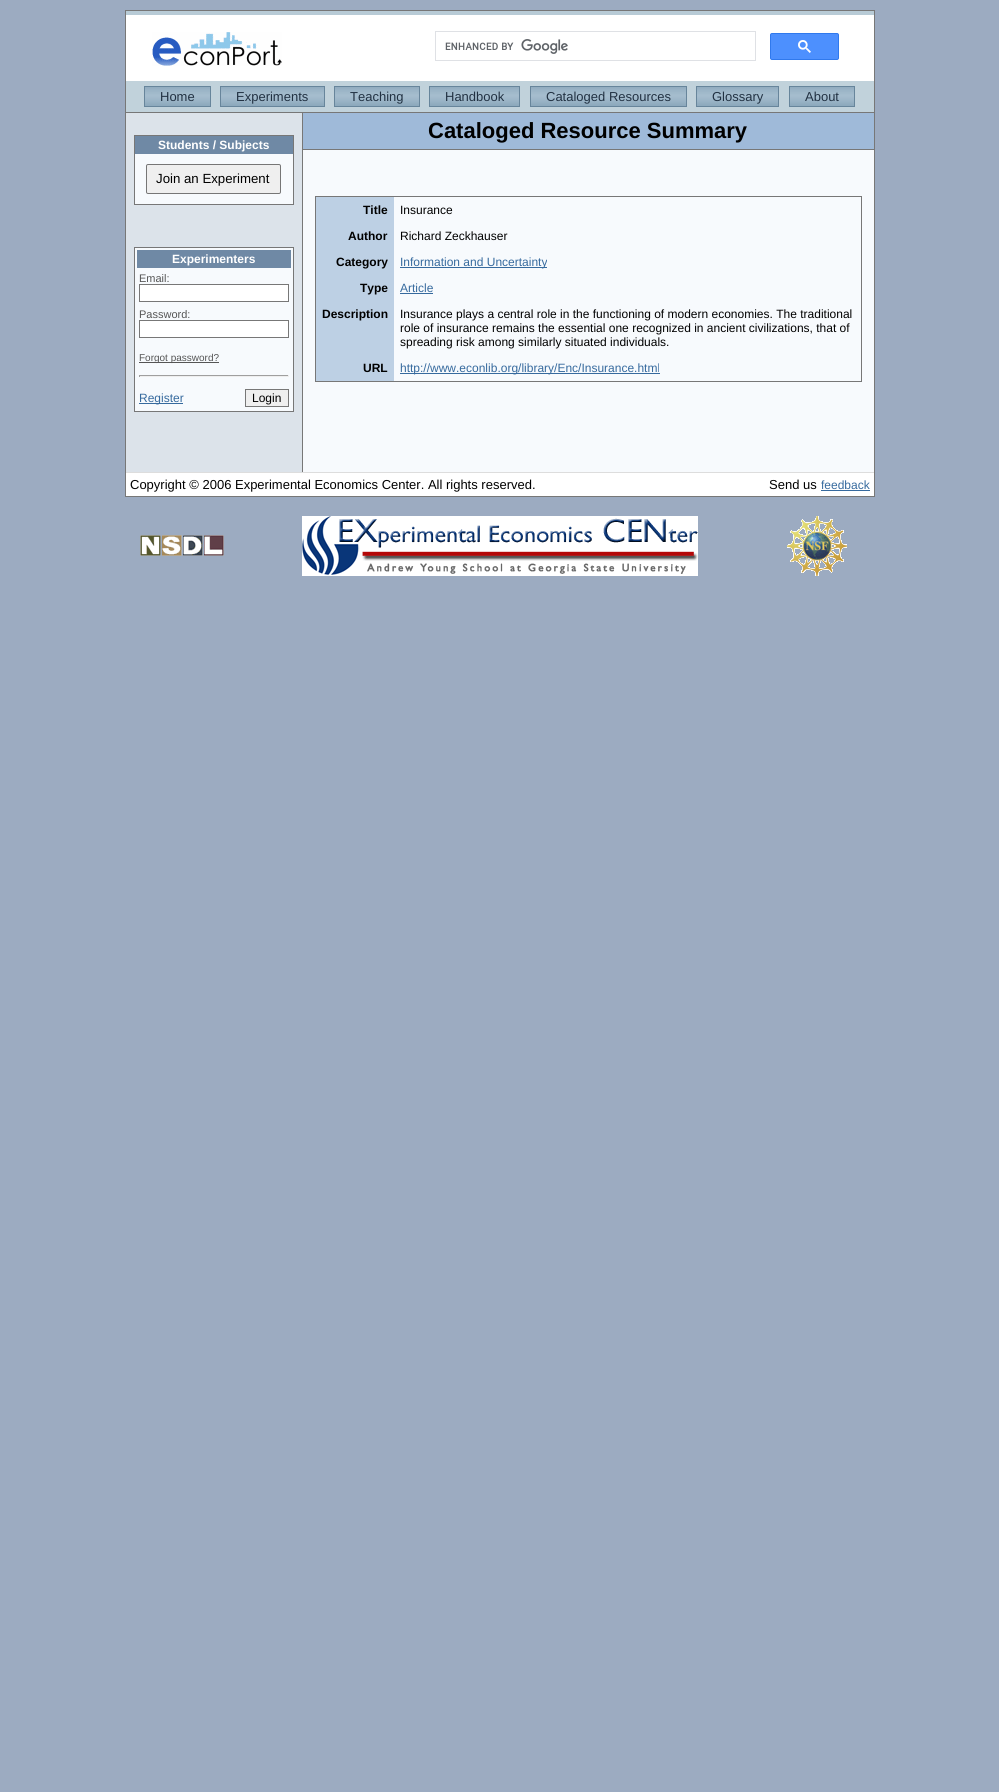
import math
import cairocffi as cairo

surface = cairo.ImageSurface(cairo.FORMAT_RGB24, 999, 1792)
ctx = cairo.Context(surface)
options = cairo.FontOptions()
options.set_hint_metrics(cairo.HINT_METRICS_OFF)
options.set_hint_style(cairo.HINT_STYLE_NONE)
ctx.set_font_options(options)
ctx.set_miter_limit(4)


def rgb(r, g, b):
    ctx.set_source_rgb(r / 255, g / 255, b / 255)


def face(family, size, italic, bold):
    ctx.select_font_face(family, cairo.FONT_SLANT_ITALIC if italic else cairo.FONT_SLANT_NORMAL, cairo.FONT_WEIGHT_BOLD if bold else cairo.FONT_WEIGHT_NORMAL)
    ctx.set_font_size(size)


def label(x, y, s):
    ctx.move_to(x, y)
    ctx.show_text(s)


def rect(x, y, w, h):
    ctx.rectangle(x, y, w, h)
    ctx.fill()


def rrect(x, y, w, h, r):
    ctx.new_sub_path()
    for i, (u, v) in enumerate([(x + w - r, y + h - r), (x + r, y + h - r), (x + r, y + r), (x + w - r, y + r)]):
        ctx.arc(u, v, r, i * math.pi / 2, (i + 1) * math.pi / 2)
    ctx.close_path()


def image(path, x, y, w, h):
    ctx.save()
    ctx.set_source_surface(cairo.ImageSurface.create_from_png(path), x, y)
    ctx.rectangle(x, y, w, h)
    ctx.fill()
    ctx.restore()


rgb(156, 171, 193)
ctx.paint()
ctx.rectangle(125.5, 10.5, 749, 486)
rgb(119, 119, 119)
ctx.set_line_width(1)
ctx.stroke()
rgb(184, 203, 214)
rect(126, 11, 748, 4)
rgb(255, 255, 255)
rect(126, 15, 748, 66)
image('image0.png', 152, 32, 130, 34)
ctx.rectangle(435.5, 31.5, 320, 29)
rgb(223, 225, 229)
ctx.stroke()
image('image1.png', 445, 39, 123, 15)
rgb(77, 144, 254)
rrect(770.5, 33.5, 68, 26, 1.5)
ctx.fill_preserve()
rgb(48, 121, 237)
ctx.stroke()
image('image2.png', 798, 40, 13, 13)
rgb(193, 210, 219)
rect(126, 81, 748, 31)
image('image3.png', 145, 87, 65, 19)
image('image4.png', 221, 87, 103, 19)
image('image5.png', 335, 87, 84, 19)
image('image6.png', 430, 87, 89, 19)
image('image7.png', 531, 87, 155, 19)
image('image8.png', 697, 87, 81, 19)
image('image9.png', 790, 87, 64, 19)
ctx.rectangle(144.5, 86.5, 66, 20)
rgb(103, 133, 155)
ctx.stroke()
face('Liberation Sans', 13, 0, 0)
rgb(33, 49, 66)
label(160, 101, 'Home')
ctx.rectangle(220.5, 86.5, 104, 20)
rgb(103, 133, 155)
ctx.stroke()
rgb(33, 49, 66)
label(236, 101, 'Experiments')
ctx.rectangle(334.5, 86.5, 85, 20)
rgb(103, 133, 155)
ctx.stroke()
rgb(33, 49, 66)
label(350, 101, 'Teaching')
ctx.rectangle(429.5, 86.5, 90, 20)
rgb(103, 133, 155)
ctx.stroke()
rgb(33, 49, 66)
label(445, 101, 'Handbook')
ctx.rectangle(530.5, 86.5, 156, 20)
rgb(103, 133, 155)
ctx.stroke()
rgb(33, 49, 66)
label(546, 101, 'Cataloged Resources')
ctx.rectangle(696.5, 86.5, 82, 20)
rgb(103, 133, 155)
ctx.stroke()
rgb(33, 49, 66)
label(712, 101, 'Glossary')
ctx.rectangle(789.5, 86.5, 65, 20)
rgb(103, 133, 155)
ctx.stroke()
rgb(33, 49, 66)
label(805, 101, 'About')
rgb(220, 227, 234)
rect(126, 113, 176, 359)
rgb(119, 119, 119)
rect(126, 112, 748, 1)
rect(302, 112, 1, 360)
rgb(247, 250, 253)
rect(135, 154, 158, 50)
ctx.rectangle(134.5, 135.5, 159, 69)
rgb(119, 119, 119)
ctx.stroke()
rgb(111, 137, 165)
rect(135, 136, 158, 18)
face('Liberation Sans', 12, 0, 1)
rgb(255, 255, 255)
label(158, 149, 'Students / Subjects')
rgb(239, 239, 239)
rrect(146.5, 164.5, 134, 29, 1.5)
ctx.fill_preserve()
rgb(118, 118, 118)
ctx.stroke()
face('Liberation Sans', 13.25, 0, 0)
rgb(0, 0, 0)
label(156, 183, 'Join an Experiment')
rgb(247, 250, 253)
ctx.rectangle(134.5, 247.5, 159, 164)
ctx.fill_preserve()
rgb(119, 119, 119)
ctx.stroke()
rgb(111, 137, 165)
rect(137, 250, 154, 18)
face('Liberation Sans', 12, 0, 1)
rgb(255, 255, 255)
label(172, 263, 'Experimenters')
face('Liberation Sans', 11, 0, 0)
rgb(85, 85, 85)
label(139, 282, 'Email:')
rgb(255, 255, 255)
ctx.rectangle(139.5, 284.5, 149, 17)
ctx.fill_preserve()
rgb(119, 119, 119)
ctx.stroke()
rgb(85, 85, 85)
label(139, 318, 'Password:')
rgb(255, 255, 255)
ctx.rectangle(139.5, 320.5, 149, 17)
ctx.fill_preserve()
rgb(119, 119, 119)
ctx.stroke()
rgb(85, 85, 85)
rect(139, 362, 80, 1)
face('Liberation Sans', 10, 0, 0)
label(139, 361, 'Forgot password?')
rgb(159, 159, 159)
rect(139, 375, 150, 1)
rgb(238, 238, 238)
rect(288, 375, 1, 2)
rect(139, 376, 150, 1)
rgb(159, 159, 159)
rect(139, 375, 1, 2)
rgb(54, 106, 158)
rect(139, 403, 44, 1)
face('Liberation Sans', 12, 0, 0)
label(139, 402, 'Register')
rgb(239, 239, 239)
ctx.rectangle(245.5, 389.5, 43, 17)
ctx.fill_preserve()
rgb(119, 119, 119)
ctx.stroke()
rgb(0, 0, 0)
label(252, 402, 'Login')
rgb(247, 250, 253)
rect(303, 150, 571, 322)
rgb(159, 186, 217)
rect(303, 113, 571, 36)
rgb(119, 119, 119)
rect(303, 149, 571, 1)
face('Liberation Sans', 22, 0, 1)
rgb(0, 0, 0)
label(428, 138, 'Cataloged Resource Summary')
ctx.rectangle(315.5, 196.5, 546, 185)
rgb(119, 119, 119)
ctx.stroke()
rgb(189, 208, 228)
rect(316, 197, 78, 184)
face('Liberation Sans', 12, 0, 1)
rgb(0, 0, 0)
label(363, 214, 'Title')
face('Liberation Sans', 12, 0, 0)
label(400, 214, 'Insurance')
face('Liberation Sans', 12, 0, 1)
label(348, 240, 'Author')
face('Liberation Sans', 12, 0, 0)
label(400, 240, 'Richard Zeckhauser')
face('Liberation Sans', 12, 0, 1)
label(336, 266, 'Category')
rgb(54, 106, 158)
rect(400, 267, 147, 1)
face('Liberation Sans', 12, 0, 0)
label(400, 266, 'Information and Uncertainty')
face('Liberation Sans', 12, 0, 1)
rgb(0, 0, 0)
label(360, 292, 'Type')
face('Liberation Sans', 12, 0, 0)
rgb(54, 106, 158)
label(400, 292, 'Article')
rect(400, 293, 33, 1)
face('Liberation Sans', 12, 0, 1)
rgb(0, 0, 0)
label(322, 318, 'Description')
face('Liberation Sans', 12, 0, 0)
label(400, 318, 'Insurance plays a central role in the functioning of modern economies. The traditional')
label(400, 332, 'role of insurance remains the essential one recognized in ancient civilizations, that of')
label(400, 346, 'spreading risk among similarly situated individuals.')
face('Liberation Sans', 12, 0, 1)
label(363, 372, 'URL')
rgb(54, 106, 158)
rect(400, 373, 260, 1)
face('Liberation Sans', 12, 0, 0)
label(400, 372, 'http://www.econlib.org/library/Enc/Insurance.html')
rgb(255, 255, 255)
rect(126, 473, 748, 23)
rgb(221, 221, 221)
rect(126, 472, 748, 1)
face('Liberation Sans', 13, 0, 0)
rgb(0, 0, 0)
label(130, 489, 'Copyright © 2006 Experimental Economics Center. All rights reserved.')
label(769, 489, 'Send us')
face('Liberation Sans', 12, 0, 0)
rgb(54, 106, 158)
label(821, 489, 'feedback')
rect(821, 490, 49, 1)
image('image10.png', 140, 535, 84, 21)
image('image11.png', 302, 516, 396, 60)
image('image12.png', 787, 516, 60, 60)
surface.write_to_png('render.png')
